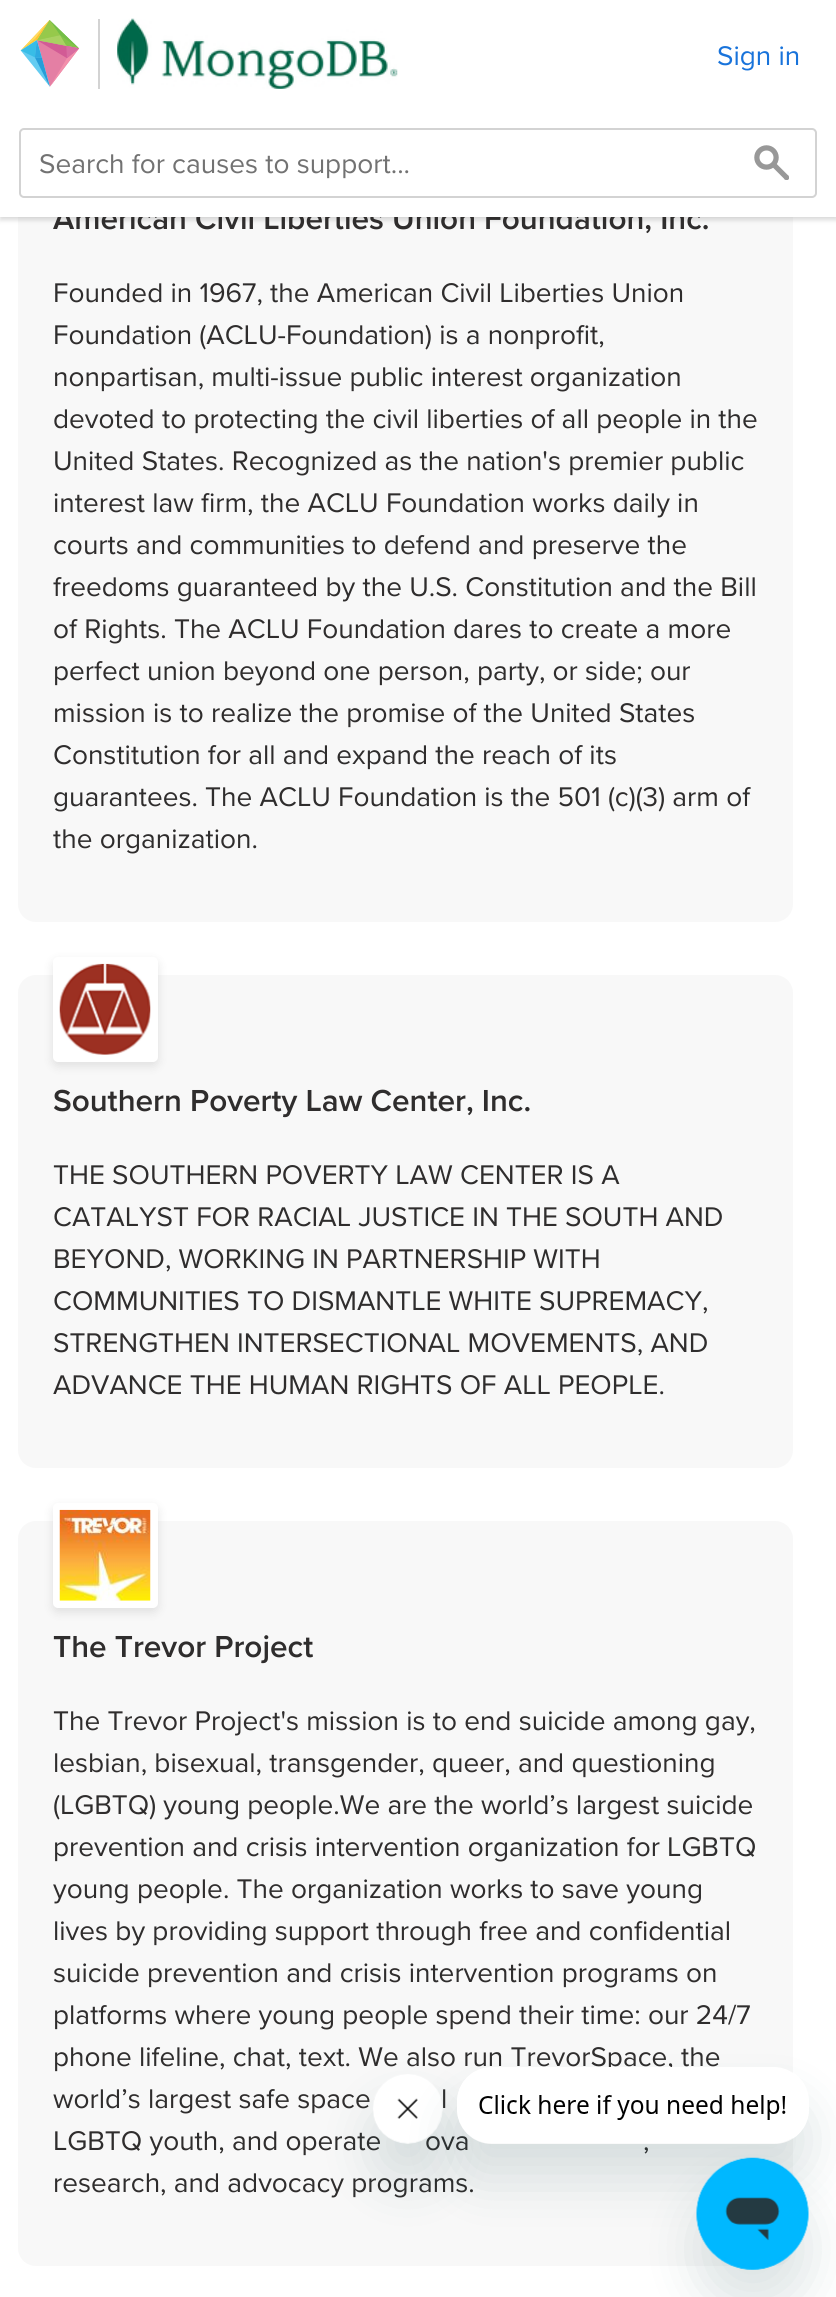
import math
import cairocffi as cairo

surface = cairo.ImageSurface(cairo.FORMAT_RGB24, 836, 2297)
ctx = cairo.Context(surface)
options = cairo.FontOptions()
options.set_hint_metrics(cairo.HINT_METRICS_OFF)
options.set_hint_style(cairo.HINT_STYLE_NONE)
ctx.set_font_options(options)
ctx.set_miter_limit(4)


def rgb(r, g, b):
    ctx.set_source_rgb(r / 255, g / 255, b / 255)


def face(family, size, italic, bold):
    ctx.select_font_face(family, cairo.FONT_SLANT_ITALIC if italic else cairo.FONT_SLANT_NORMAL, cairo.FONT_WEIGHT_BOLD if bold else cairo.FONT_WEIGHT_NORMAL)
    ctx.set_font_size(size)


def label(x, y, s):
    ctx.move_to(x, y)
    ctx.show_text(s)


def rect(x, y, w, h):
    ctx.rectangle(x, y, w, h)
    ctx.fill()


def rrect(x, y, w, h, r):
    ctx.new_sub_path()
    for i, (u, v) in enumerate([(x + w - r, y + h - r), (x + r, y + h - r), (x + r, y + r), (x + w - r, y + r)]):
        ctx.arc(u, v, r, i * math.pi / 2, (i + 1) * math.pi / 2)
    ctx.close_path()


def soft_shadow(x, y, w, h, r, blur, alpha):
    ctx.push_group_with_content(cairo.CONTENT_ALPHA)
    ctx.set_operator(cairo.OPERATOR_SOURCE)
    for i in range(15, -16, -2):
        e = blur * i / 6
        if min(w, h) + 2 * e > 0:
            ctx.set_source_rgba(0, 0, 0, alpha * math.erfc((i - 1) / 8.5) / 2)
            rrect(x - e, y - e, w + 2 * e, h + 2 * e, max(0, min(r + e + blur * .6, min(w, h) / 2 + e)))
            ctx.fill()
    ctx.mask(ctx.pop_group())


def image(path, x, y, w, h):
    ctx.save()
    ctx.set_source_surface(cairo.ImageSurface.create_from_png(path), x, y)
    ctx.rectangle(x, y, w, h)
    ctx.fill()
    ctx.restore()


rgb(255, 255, 255)
ctx.paint()
rgb(248, 248, 248)
rrect(18, 93, 775, 829, 18)
ctx.fill()
rgb(0, 0, 0)
soft_shadow(0, 4, 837, 217, 0, 2, 0.1)
soft_shadow(0, 0, 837, 217, 0, 2, 0.1)
face('Proxima Nova SemiBold', 31.5, 0, 0)
rgb(47, 45, 45)
label(53, 229, 'American Civil Liberties Union Foundation, Inc.')
rgb(255, 255, 255)
rect(0, 0, 836, 217)
image('image0.png', 20, 20, 59, 67)
rgb(211, 211, 211)
rect(98, 19, 2, 70)
image('image1.png', 117, 18, 281, 71)
face('Proxima Nova', 28, 0, 0)
rgb(24, 115, 219)
label(717, 65, 'Sign in')
rrect(20, 129, 796, 68, 4)
rgb(211, 211, 211)
ctx.stroke()
rgb(114, 114, 114)
label(39, 173, 'Search for causes to support...')
image('image2.png', 754, 145, 35, 35)
rgb(47, 45, 45)
label(53, 302, 'Founded in 1967, the American Civil Liberties Union')
label(53, 344, 'Foundation (ACLU-Foundation) is a nonprofit,')
label(53, 386, 'nonpartisan, multi-issue public interest organization')
label(53, 428, 'devoted to protecting the civil liberties of all people in the')
label(53, 470, 'United States. Recognized as the nation\'s premier public')
label(53, 512, 'interest law firm, the ACLU Foundation works daily in')
label(53, 554, 'courts and communities to defend and preserve the')
label(53, 596, 'freedoms guaranteed by the U.S. Constitution and the Bill')
label(53, 638, 'of Rights. The ACLU Foundation dares to create a more')
label(53, 680, 'perfect union beyond one person, party, or side; our')
label(53, 722, 'mission is to realize the promise of the United States')
label(53, 764, 'Constitution for all and expand the reach of its')
label(53, 806, 'guarantees. The ACLU Foundation is the 501 (c)(3) arm of')
label(53, 848, 'the organization.')
rgb(248, 248, 248)
rrect(18, 975, 775, 493, 18)
ctx.fill()
rgb(0, 0, 0)
soft_shadow(53, 961, 105, 105, 5, 5, 0.1)
rgb(255, 255, 255)
rrect(53, 957, 105, 105, 5)
ctx.fill()
image('image3.png', 59, 963, 92, 92)
face('Proxima Nova SemiBold', 31.5, 0, 0)
rgb(47, 45, 45)
label(53, 1111, 'Southern Poverty Law Center, Inc.')
face('Proxima Nova', 28, 0, 0)
label(53, 1184, 'THE SOUTHERN POVERTY LAW CENTER IS A')
label(53, 1226, 'CATALYST FOR RACIAL JUSTICE IN THE SOUTH AND')
label(53, 1268, 'BEYOND, WORKING IN PARTNERSHIP WITH')
label(53, 1310, 'COMMUNITIES TO DISMANTLE WHITE SUPREMACY,')
label(53, 1352, 'STRENGTHEN INTERSECTIONAL MOVEMENTS, AND')
label(53, 1394, 'ADVANCE THE HUMAN RIGHTS OF ALL PEOPLE.')
rgb(248, 248, 248)
rrect(18, 1521, 775, 745, 18)
ctx.fill()
rgb(0, 0, 0)
soft_shadow(53, 1507, 105, 105, 5, 5, 0.1)
rgb(255, 255, 255)
rrect(53, 1503, 105, 105, 5)
ctx.fill()
image('image4.png', 59, 1509, 92, 92)
face('Proxima Nova SemiBold', 31.5, 0, 0)
rgb(47, 45, 45)
label(53, 1657, 'The Trevor Project')
face('Proxima Nova', 28, 0, 0)
label(53, 1730, 'The Trevor Project\'s mission is to end suicide among gay,')
label(53, 1772, 'lesbian, bisexual, transgender, queer, and questioning')
label(53, 1814, '(LGBTQ) young people.We are the world’s largest suicide')
label(53, 1856, 'prevention and crisis intervention organization for LGBTQ')
label(53, 1898, 'young people. The organization works to save young')
label(53, 1940, 'lives by providing support through free and confidential')
label(53, 1982, 'suicide prevention and crisis intervention programs on')
label(53, 2024, 'platforms where young people spend their time: our 24/7')
label(53, 2066, 'phone lifeline, chat, text. We also run TrevorSpace, the')
label(53, 2108, 'world’s largest safe space')
label(441, 2108, 'l')
label(53, 2150, 'LGBTQ youth, and operate')
label(425, 2150, 'ova')
label(643, 2150, ',')
label(53, 2192, 'research, and advocacy programs.')
rgb(23, 73, 77)
soft_shadow(373, 2109, 70, 70, 35, 26, 0.15)
image('image6.png', 373, 2074, 70, 70)
ctx.save()
ctx.set_fill_rule(cairo.FILL_RULE_EVEN_ODD)
ctx.new_path()
ctx.move_to(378, 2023)
ctx.line_to(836, 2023)
ctx.line_to(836, 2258)
ctx.line_to(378, 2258)
ctx.close_path()
ctx.move_to(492, 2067)
ctx.line_to(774, 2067)
ctx.curve_to(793.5, 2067, 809, 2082.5, 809, 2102)
ctx.line_to(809, 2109)
ctx.curve_to(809, 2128.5, 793.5, 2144, 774, 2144)
ctx.line_to(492, 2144)
ctx.curve_to(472.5, 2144, 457, 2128.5, 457, 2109)
ctx.line_to(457, 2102)
ctx.curve_to(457, 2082.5, 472.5, 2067, 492, 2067)
ctx.close_path()
ctx.clip()
soft_shadow(457, 2102, 352, 77, 35, 26, 0.15)
ctx.restore()
image('image5.png', 457, 2067, 336, 77)
soft_shadow(697, 2193, 112, 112, 56, 26, 0.15)
image('image7.png', 696, 2157, 113, 113)
surface.write_to_png('render.png')
